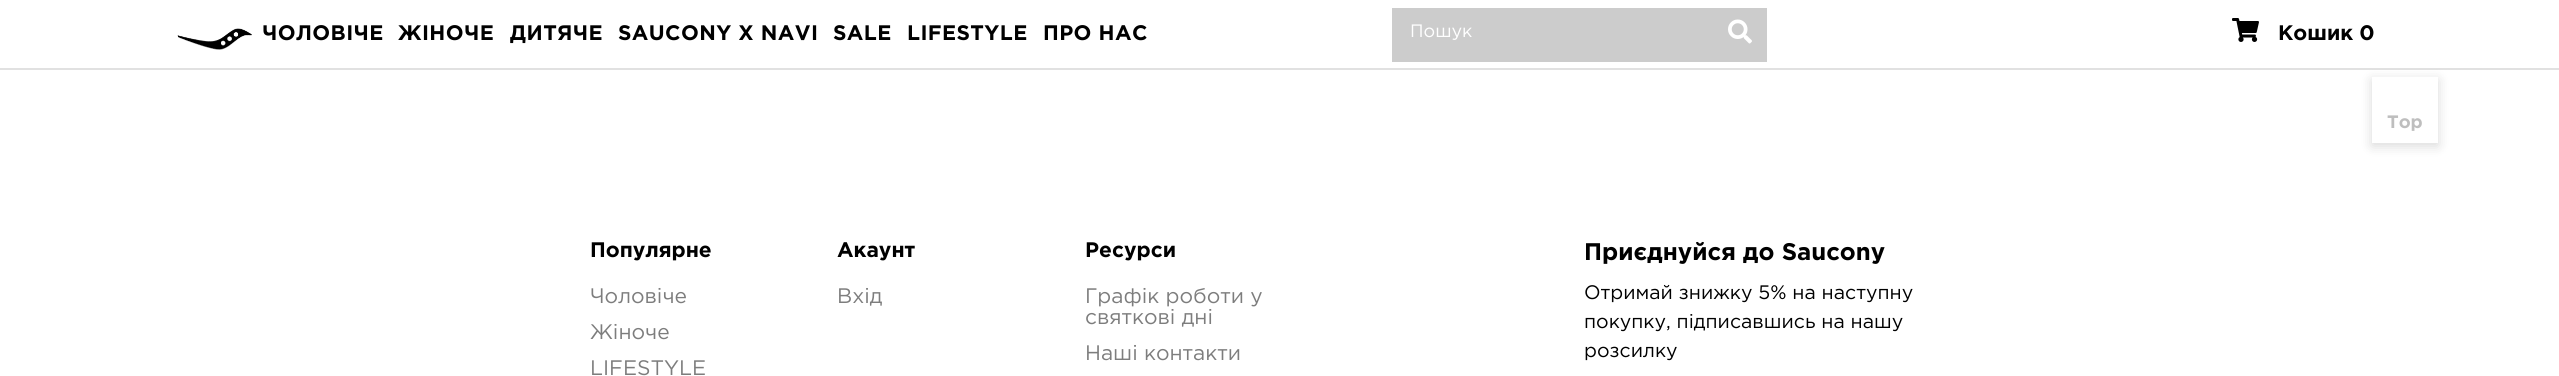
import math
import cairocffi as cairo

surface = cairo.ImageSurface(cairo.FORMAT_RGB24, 2559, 376)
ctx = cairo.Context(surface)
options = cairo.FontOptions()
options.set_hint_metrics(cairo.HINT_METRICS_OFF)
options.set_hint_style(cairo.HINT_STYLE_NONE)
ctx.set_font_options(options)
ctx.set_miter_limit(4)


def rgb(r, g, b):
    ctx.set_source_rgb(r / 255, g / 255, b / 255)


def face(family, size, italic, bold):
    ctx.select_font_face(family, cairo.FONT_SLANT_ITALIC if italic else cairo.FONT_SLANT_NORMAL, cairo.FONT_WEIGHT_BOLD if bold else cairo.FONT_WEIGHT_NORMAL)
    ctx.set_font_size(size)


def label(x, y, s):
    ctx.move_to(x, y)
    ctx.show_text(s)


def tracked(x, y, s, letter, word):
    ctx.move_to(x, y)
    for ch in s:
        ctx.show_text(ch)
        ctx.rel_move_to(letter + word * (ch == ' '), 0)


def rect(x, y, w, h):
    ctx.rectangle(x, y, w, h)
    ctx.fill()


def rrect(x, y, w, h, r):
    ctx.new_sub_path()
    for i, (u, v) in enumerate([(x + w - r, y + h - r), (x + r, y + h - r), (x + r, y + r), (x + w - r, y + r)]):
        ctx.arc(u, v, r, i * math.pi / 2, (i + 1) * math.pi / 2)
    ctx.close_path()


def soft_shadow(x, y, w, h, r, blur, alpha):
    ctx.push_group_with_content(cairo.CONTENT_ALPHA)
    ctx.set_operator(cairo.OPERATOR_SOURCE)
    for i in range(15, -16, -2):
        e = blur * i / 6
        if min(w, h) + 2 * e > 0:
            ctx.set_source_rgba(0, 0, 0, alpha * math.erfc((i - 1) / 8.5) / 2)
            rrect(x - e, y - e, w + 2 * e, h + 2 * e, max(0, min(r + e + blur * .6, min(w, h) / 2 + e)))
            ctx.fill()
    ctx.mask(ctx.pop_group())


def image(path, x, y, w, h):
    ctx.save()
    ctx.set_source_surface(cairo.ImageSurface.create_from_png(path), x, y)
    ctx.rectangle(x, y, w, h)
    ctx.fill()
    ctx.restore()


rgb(255, 255, 255)
ctx.paint()
rgb(204, 204, 204)
rect(1392, 8, 375, 54)
face('Gotham', 18, 0, 0)
rgb(255, 255, 255)
label(1410, 37, 'Пошук')
image('image0.png', 1728, 19, 24, 25)
rgb(225, 225, 225)
rect(0, 68, 2559, 2)
image('image1.png', 177, 28, 75, 22)
face('Gotham', 21, 0, 1)
rgb(0, 0, 0)
tracked(262, 40, 'ЧОЛОВІЧЕ', 0.4, 0)
tracked(398, 40, 'ЖІНОЧЕ', 0.4, 0)
tracked(510, 40, 'ДИТЯЧЕ', 0.4, 0)
tracked(618, 40, 'SAUCONY X NAVI', 0.4, 0)
tracked(833, 40, 'SALE', 0.4, 0)
tracked(907, 40, 'LIFESTYLE', 0.4, 0)
tracked(1043, 40, 'ПРО НАС', 0.4, 0)
image('image2.png', 2232, 18, 27, 24)
label(2278, 40, 'Кошик 0')
rgb(0, 0, 0)
soft_shadow(2372, 80, 66, 66, 0, 6, 0.15)
rgb(255, 255, 255)
rect(2372, 77, 66, 66)
face('Gotham', 18, 0, 1)
rgb(190, 190, 190)
label(2387, 128, 'Top')
face('Gotham', 21, 0, 1)
rgb(0, 0, 0)
label(590, 257, 'Популярне')
face('Gotham', 21, 0, 0)
rgb(125, 125, 125)
label(590, 303, 'Чоловіче')
label(590, 339, 'Жіноче')
label(590, 375, 'LIFESTYLE')
face('Gotham', 21, 0, 1)
rgb(0, 0, 0)
label(837, 257, 'Акаунт')
face('Gotham', 21, 0, 0)
rgb(125, 125, 125)
label(837, 303, 'Вхід')
face('Gotham', 21, 0, 1)
rgb(0, 0, 0)
label(1085, 257, 'Ресурси')
face('Gotham', 21, 0, 0)
rgb(125, 125, 125)
label(1085, 303, 'Графік роботи у')
label(1085, 324, 'святкові дні')
label(1085, 360, 'Наші контакти')
face('Gotham', 24, 0, 1)
rgb(0, 0, 0)
label(1584, 260, 'Приєднуйся до Saucony')
face('Gotham', 19.5, 0, 0)
label(1584, 299, 'Отримай знижку 5% на наступну')
label(1584, 328, 'покупку, підписавшись на нашу')
label(1584, 357, 'розсилку')
surface.write_to_png('render.png')
